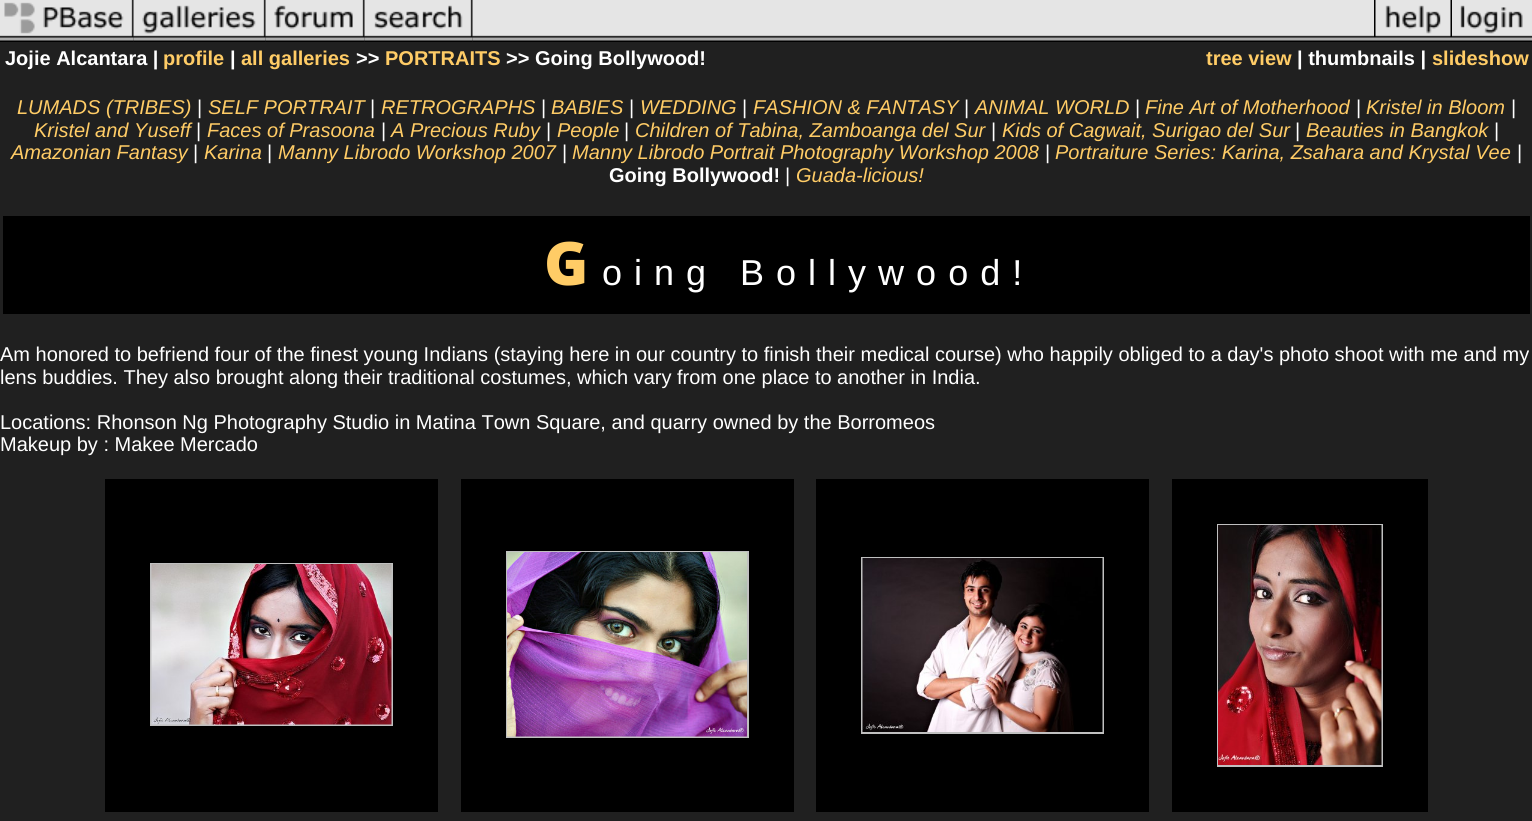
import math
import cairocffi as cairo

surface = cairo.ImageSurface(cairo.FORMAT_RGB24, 1532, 821)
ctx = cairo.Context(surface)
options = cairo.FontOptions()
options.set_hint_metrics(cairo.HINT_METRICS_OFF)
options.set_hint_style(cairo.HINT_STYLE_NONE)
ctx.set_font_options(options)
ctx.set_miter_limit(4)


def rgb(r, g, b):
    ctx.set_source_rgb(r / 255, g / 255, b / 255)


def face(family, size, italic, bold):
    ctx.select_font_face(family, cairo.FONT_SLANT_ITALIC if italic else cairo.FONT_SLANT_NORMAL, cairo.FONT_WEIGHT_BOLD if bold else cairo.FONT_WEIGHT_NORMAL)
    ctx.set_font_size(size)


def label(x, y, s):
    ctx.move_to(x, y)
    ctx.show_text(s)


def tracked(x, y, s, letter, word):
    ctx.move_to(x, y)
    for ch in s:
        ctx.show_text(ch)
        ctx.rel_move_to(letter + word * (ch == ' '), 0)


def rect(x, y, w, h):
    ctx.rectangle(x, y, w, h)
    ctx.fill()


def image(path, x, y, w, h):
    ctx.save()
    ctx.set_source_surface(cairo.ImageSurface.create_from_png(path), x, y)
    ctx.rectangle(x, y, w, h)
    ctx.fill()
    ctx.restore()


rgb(32, 32, 32)
ctx.paint()
image('image0.png', 0, 0, 134, 42)
image('image1.png', 133, 0, 133, 42)
image('image2.png', 265, 0, 100, 42)
image('image3.png', 364, 0, 109, 42)
image('image4.png', 472, 0, 902, 42)
image('image5.png', 1374, 0, 78, 42)
image('image6.png', 1452, 0, 80, 42)
face('Liberation Sans', 20, 0, 1)
rgb(255, 255, 255)
label(5, 65, 'Jojie Alcantara |')
rgb(255, 204, 102)
label(163, 65, 'profile')
rgb(255, 255, 255)
label(230, 65, '|')
rgb(255, 204, 102)
label(241, 65, 'all galleries')
rgb(255, 255, 255)
label(356, 65, '>>')
rgb(255, 204, 102)
label(385, 65, 'PORTRAITS')
rgb(255, 255, 255)
label(506, 65, '>> Going Bollywood!')
rgb(255, 204, 102)
label(1206, 65, 'tree view')
rgb(255, 255, 255)
label(1297, 65, '| thumbnails |')
rgb(255, 204, 102)
label(1432, 65, 'slideshow')
face('Liberation Sans', 20, 1, 0)
label(17, 114, 'LUMADS (TRIBES)')
face('Liberation Sans', 20, 0, 0)
rgb(255, 255, 255)
label(197, 114, '|')
face('Liberation Sans', 20, 1, 0)
rgb(255, 204, 102)
label(208, 114, 'SELF PORTRAIT')
face('Liberation Sans', 20, 0, 0)
rgb(255, 255, 255)
label(370, 114, '|')
face('Liberation Sans', 20, 1, 0)
rgb(255, 204, 102)
label(381, 114, 'RETROGRAPHS')
face('Liberation Sans', 20, 0, 0)
rgb(255, 255, 255)
label(541, 114, '|')
face('Liberation Sans', 20, 1, 0)
rgb(255, 204, 102)
label(551, 114, 'BABIES')
face('Liberation Sans', 20, 0, 0)
rgb(255, 255, 255)
label(629, 114, '|')
face('Liberation Sans', 20, 1, 0)
rgb(255, 204, 102)
label(640, 114, 'WEDDING')
face('Liberation Sans', 20, 0, 0)
rgb(255, 255, 255)
label(742, 114, '|')
face('Liberation Sans', 20, 1, 0)
rgb(255, 204, 102)
label(753, 114, 'FASHION & FANTASY')
face('Liberation Sans', 20, 0, 0)
rgb(255, 255, 255)
label(964, 114, '|')
face('Liberation Sans', 20, 1, 0)
rgb(255, 204, 102)
label(975, 114, 'ANIMAL WORLD')
face('Liberation Sans', 20, 0, 0)
rgb(255, 255, 255)
label(1135, 114, '|')
face('Liberation Sans', 20, 1, 0)
rgb(255, 204, 102)
label(1145, 114, 'Fine Art of Motherhood')
face('Liberation Sans', 20, 0, 0)
rgb(255, 255, 255)
label(1356, 114, '|')
face('Liberation Sans', 20, 1, 0)
rgb(255, 204, 102)
label(1366, 114, 'Kristel in Bloom')
face('Liberation Sans', 20, 0, 0)
rgb(255, 255, 255)
label(1511, 114, '|')
face('Liberation Sans', 20, 1, 0)
rgb(255, 204, 102)
label(34, 137, 'Kristel and Yuseff')
face('Liberation Sans', 20, 0, 0)
rgb(255, 255, 255)
label(196, 137, '|')
face('Liberation Sans', 20, 1, 0)
rgb(255, 204, 102)
label(207, 137, 'Faces of Prasoona')
face('Liberation Sans', 20, 0, 0)
rgb(255, 255, 255)
label(381, 137, '|')
face('Liberation Sans', 20, 1, 0)
rgb(255, 204, 102)
label(391, 137, 'A Precious Ruby')
face('Liberation Sans', 20, 0, 0)
rgb(255, 255, 255)
label(546, 137, '|')
face('Liberation Sans', 20, 1, 0)
rgb(255, 204, 102)
label(557, 137, 'People')
face('Liberation Sans', 20, 0, 0)
rgb(255, 255, 255)
label(624, 137, '|')
face('Liberation Sans', 20, 1, 0)
rgb(255, 204, 102)
label(635, 137, 'Children of Tabina, Zamboanga del Sur')
face('Liberation Sans', 20, 0, 0)
rgb(255, 255, 255)
label(991, 137, '|')
face('Liberation Sans', 20, 1, 0)
rgb(255, 204, 102)
label(1002, 137, 'Kids of Cagwait, Surigao del Sur')
face('Liberation Sans', 20, 0, 0)
rgb(255, 255, 255)
label(1295, 137, '|')
face('Liberation Sans', 20, 1, 0)
rgb(255, 204, 102)
label(1306, 137, 'Beauties in Bangkok')
face('Liberation Sans', 20, 0, 0)
rgb(255, 255, 255)
label(1494, 137, '|')
face('Liberation Sans', 20, 1, 0)
rgb(255, 204, 102)
label(11, 159, 'Amazonian Fantasy')
face('Liberation Sans', 20, 0, 0)
rgb(255, 255, 255)
label(193, 159, '|')
face('Liberation Sans', 20, 1, 0)
rgb(255, 204, 102)
label(204, 159, 'Karina')
face('Liberation Sans', 20, 0, 0)
rgb(255, 255, 255)
label(267, 159, '|')
face('Liberation Sans', 20, 1, 0)
rgb(255, 204, 102)
label(278, 159, 'Manny Librodo Workshop 2007')
face('Liberation Sans', 20, 0, 0)
rgb(255, 255, 255)
label(562, 159, '|')
face('Liberation Sans', 20, 1, 0)
rgb(255, 204, 102)
label(572, 159, 'Manny Librodo Portrait Photography Workshop 2008')
face('Liberation Sans', 20, 0, 0)
rgb(255, 255, 255)
label(1045, 159, '|')
face('Liberation Sans', 20, 1, 0)
rgb(255, 204, 102)
label(1055, 159, 'Portraiture Series: Karina, Zsahara and Krystal Vee')
face('Liberation Sans', 20, 0, 0)
rgb(255, 255, 255)
label(1517, 159, '|')
face('Liberation Sans', 20, 0, 1)
label(609, 182, 'Going Bollywood!')
face('Liberation Sans', 20, 0, 0)
label(785, 182, '|')
face('Liberation Sans', 20, 1, 0)
rgb(255, 204, 102)
label(796, 182, 'Guada-licious!')
rgb(0, 0, 0)
rect(3, 216, 1527, 98)
face('Noto Sans Black', 60, 0, 0)
rgb(255, 204, 102)
tracked(544, 285, 'G', 12, 0)
face('Liberation Sans', 36, 0, 0)
rgb(255, 255, 255)
tracked(602, 285, 'oing Bollywood!', 12, 0)
face('Liberation Sans', 20, 0, 0)
label(0, 361, 'Am honored to befriend four of the finest young Indians (staying here in our country to finish their medical course) who happily obliged to a day\'s photo shoot with me and my')
label(0, 384, 'lens buddies. They also brought along their traditional costumes, which vary from one place to another in India.')
label(0, 429, 'Locations: Rhonson Ng Photography Studio in Matina Town Square, and quarry owned by the Borromeos')
label(0, 451, 'Makeup by : Makee Mercado')
rgb(0, 0, 0)
rect(105, 479, 333, 333)
ctx.rectangle(151, 564, 241, 161)
rgb(192, 192, 192)
ctx.stroke()
image('image7.png', 151, 564, 241, 161)
rgb(0, 0, 0)
rect(461, 479, 333, 333)
ctx.rectangle(507, 552, 241, 185)
rgb(192, 192, 192)
ctx.stroke()
image('image8.png', 507, 552, 240, 185)
rgb(0, 0, 0)
rect(816, 479, 333, 333)
ctx.rectangle(862, 558, 241, 175)
rgb(192, 192, 192)
ctx.stroke()
image('image9.png', 862, 558, 241, 174)
rgb(0, 0, 0)
rect(1172, 479, 256, 333)
ctx.rectangle(1218, 525, 164, 241)
rgb(192, 192, 192)
ctx.stroke()
image('image10.png', 1218, 525, 164, 240)
surface.write_to_png('render.png')
